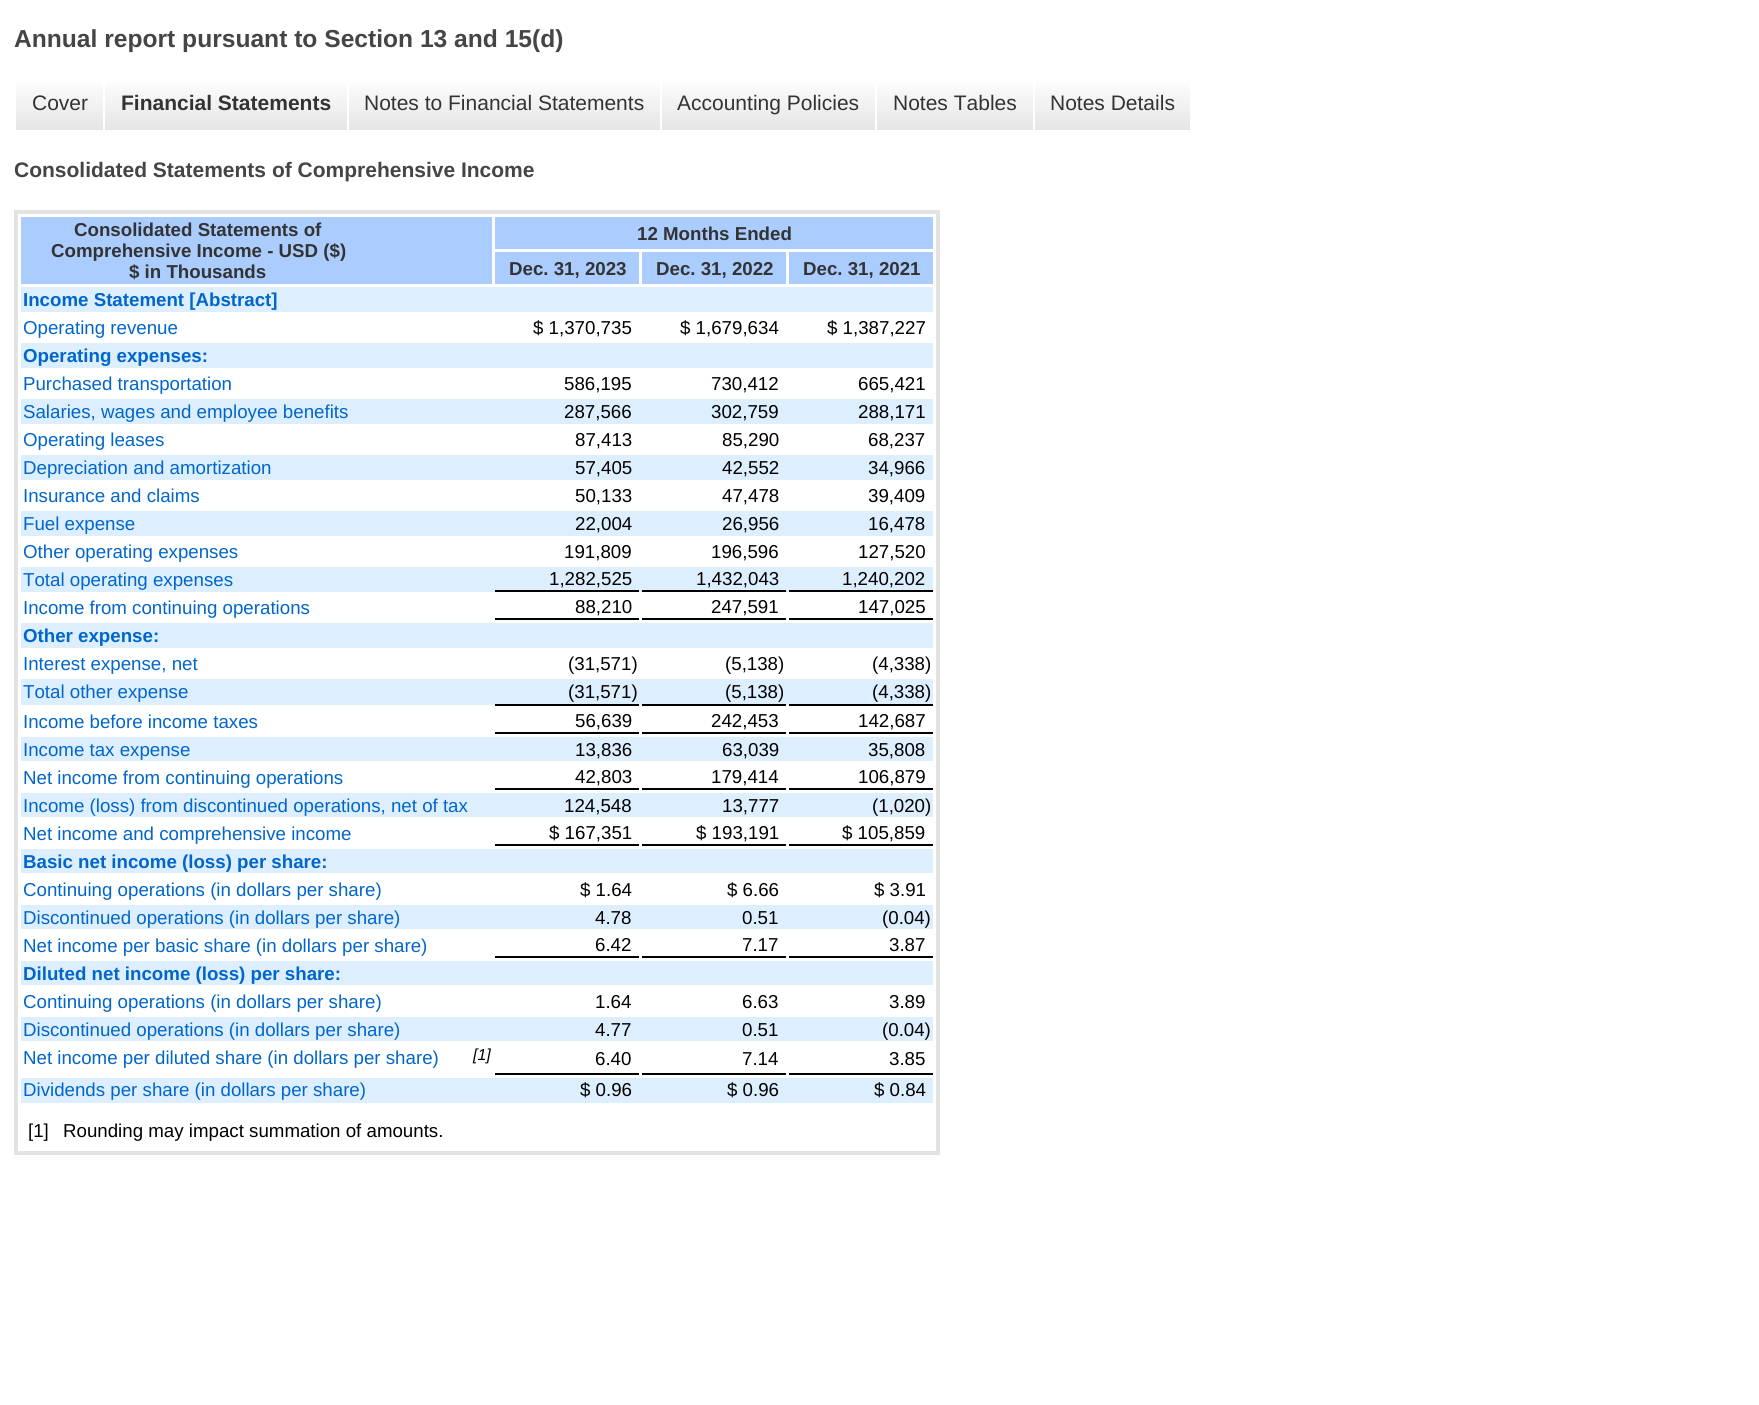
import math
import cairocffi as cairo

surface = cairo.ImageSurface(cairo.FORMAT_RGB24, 1759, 1405)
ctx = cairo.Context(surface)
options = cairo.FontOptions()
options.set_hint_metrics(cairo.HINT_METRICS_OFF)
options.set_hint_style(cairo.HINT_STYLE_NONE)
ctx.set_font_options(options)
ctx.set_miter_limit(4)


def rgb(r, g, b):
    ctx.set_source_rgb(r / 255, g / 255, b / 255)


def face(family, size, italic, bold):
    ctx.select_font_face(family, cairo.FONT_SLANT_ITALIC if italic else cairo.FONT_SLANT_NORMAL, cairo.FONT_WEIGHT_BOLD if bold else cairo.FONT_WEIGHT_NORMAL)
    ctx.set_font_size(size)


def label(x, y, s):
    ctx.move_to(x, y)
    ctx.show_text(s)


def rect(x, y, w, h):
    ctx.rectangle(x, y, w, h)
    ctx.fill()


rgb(255, 255, 255)
ctx.paint()
face('Liberation Sans', 24.6, 0, 1)
rgb(69, 69, 69)
label(14, 47, 'Annual report pursuant to Section 13 and 15(d)')
gradient = cairo.LinearGradient(60, 77, 60, 130)
gradient.add_color_stop_rgba(0, 1, 1, 1, 1)
gradient.add_color_stop_rgba(1, 0.898, 0.898, 0.898, 1)
ctx.set_source(gradient)
rect(16, 82, 87, 48)
face('Liberation Sans', 21, 0, 0)
rgb(51, 51, 51)
label(32, 110, 'Cover')
gradient = cairo.LinearGradient(226, 77, 226, 130)
gradient.add_color_stop_rgba(0, 1, 1, 1, 1)
gradient.add_color_stop_rgba(1, 0.898, 0.898, 0.898, 1)
ctx.set_source(gradient)
rect(105, 82, 242, 48)
face('Liberation Sans', 21, 0, 1)
rgb(51, 51, 51)
label(121, 110, 'Financial Statements')
gradient = cairo.LinearGradient(504, 77, 504, 130)
gradient.add_color_stop_rgba(0, 1, 1, 1, 1)
gradient.add_color_stop_rgba(1, 0.898, 0.898, 0.898, 1)
ctx.set_source(gradient)
rect(349, 82, 311, 48)
face('Liberation Sans', 21, 0, 0)
rgb(51, 51, 51)
label(364, 110, 'Notes to Financial Statements')
gradient = cairo.LinearGradient(768, 77, 768, 130)
gradient.add_color_stop_rgba(0, 1, 1, 1, 1)
gradient.add_color_stop_rgba(1, 0.898, 0.898, 0.898, 1)
ctx.set_source(gradient)
rect(662, 82, 213, 48)
rgb(51, 51, 51)
label(677, 110, 'Accounting Policies')
gradient = cairo.LinearGradient(955, 77, 955, 130)
gradient.add_color_stop_rgba(0, 1, 1, 1, 1)
gradient.add_color_stop_rgba(1, 0.898, 0.898, 0.898, 1)
ctx.set_source(gradient)
rect(877, 82, 156, 48)
rgb(51, 51, 51)
label(893, 110, 'Notes Tables')
gradient = cairo.LinearGradient(1112, 77, 1112, 130)
gradient.add_color_stop_rgba(0, 1, 1, 1, 1)
gradient.add_color_stop_rgba(1, 0.898, 0.898, 0.898, 1)
ctx.set_source(gradient)
rect(1035, 82, 155, 48)
rgb(51, 51, 51)
label(1050, 110, 'Notes Details')
face('Liberation Sans', 21, 0, 1)
rgb(69, 69, 69)
label(14, 177, 'Consolidated Statements of Comprehensive Income')
ctx.rectangle(16, 212, 922, 941)
rgb(227, 227, 227)
ctx.set_line_width(4)
ctx.stroke()
rgb(170, 204, 255)
rect(21, 217, 471, 67)
face('Liberation Sans', 18.7, 0, 1)
rgb(51, 51, 51)
label(74, 236, 'Consolidated Statements of')
label(51, 257, 'Comprehensive Income - USD ($)')
label(129, 278, '$ in Thousands')
rgb(170, 204, 255)
rect(495, 217, 438, 32)
rgb(51, 51, 51)
label(637, 240, '12 Months Ended')
rgb(170, 204, 255)
rect(495, 252, 144, 32)
rgb(51, 51, 51)
label(509, 275, 'Dec. 31, 2023')
rgb(170, 204, 255)
rect(642, 252, 144, 32)
rgb(51, 51, 51)
label(656, 275, 'Dec. 31, 2022')
rgb(170, 204, 255)
rect(789, 252, 144, 32)
rgb(51, 51, 51)
label(803, 275, 'Dec. 31, 2021')
rgb(221, 238, 255)
rect(21, 287, 912, 25)
rgb(0, 102, 204)
label(23, 306, 'Income Statement [Abstract]')
face('Liberation Sans', 18.7, 0, 0)
label(23, 334, 'Operating revenue')
rgb(0, 0, 0)
label(533, 334, '$ 1,370,735')
label(680, 334, '$ 1,679,634')
label(827, 334, '$ 1,387,227')
rgb(221, 238, 255)
rect(21, 343, 912, 25)
face('Liberation Sans', 18.7, 0, 1)
rgb(0, 102, 204)
label(23, 362, 'Operating expenses:')
face('Liberation Sans', 18.7, 0, 0)
label(23, 390, 'Purchased transportation')
rgb(0, 0, 0)
label(564, 390, '586,195')
label(711, 390, '730,412')
label(858, 390, '665,421')
rgb(221, 238, 255)
rect(21, 399, 912, 25)
rgb(0, 102, 204)
label(23, 418, 'Salaries, wages and employee benefits')
rgb(0, 0, 0)
label(564, 418, '287,566')
label(711, 418, '302,759')
label(858, 418, '288,171')
rgb(0, 102, 204)
label(23, 446, 'Operating leases')
rgb(0, 0, 0)
label(575, 446, '87,413')
label(722, 446, '85,290')
label(868, 446, '68,237')
rgb(221, 238, 255)
rect(21, 455, 912, 25)
rgb(0, 102, 204)
label(23, 474, 'Depreciation and amortization')
rgb(0, 0, 0)
label(575, 474, '57,405')
label(722, 474, '42,552')
label(868, 474, '34,966')
rgb(0, 102, 204)
label(23, 502, 'Insurance and claims')
rgb(0, 0, 0)
label(575, 502, '50,133')
label(722, 502, '47,478')
label(868, 502, '39,409')
rgb(221, 238, 255)
rect(21, 511, 912, 25)
rgb(0, 102, 204)
label(23, 530, 'Fuel expense')
rgb(0, 0, 0)
label(575, 530, '22,004')
label(722, 530, '26,956')
label(868, 530, '16,478')
rgb(0, 102, 204)
label(23, 558, 'Other operating expenses')
rgb(0, 0, 0)
label(564, 558, '191,809')
label(711, 558, '196,596')
label(858, 558, '127,520')
rgb(221, 238, 255)
rect(21, 567, 912, 25)
rgb(0, 102, 204)
label(23, 586, 'Total operating expenses')
rgb(0, 0, 0)
rect(495, 590, 144, 2)
label(549, 585, '1,282,525')
rect(642, 590, 144, 2)
label(696, 585, '1,432,043')
rect(789, 590, 144, 2)
label(842, 585, '1,240,202')
rgb(0, 102, 204)
label(23, 614, 'Income from continuing operations')
rgb(0, 0, 0)
rect(495, 618, 144, 2)
label(575, 613, '88,210')
rect(642, 618, 144, 2)
label(711, 613, '247,591')
rect(789, 618, 144, 2)
label(858, 613, '147,025')
rgb(221, 238, 255)
rect(21, 623, 912, 25)
face('Liberation Sans', 18.7, 0, 1)
rgb(0, 102, 204)
label(23, 642, 'Other expense:')
face('Liberation Sans', 18.7, 0, 0)
label(23, 670, 'Interest expense, net')
rgb(0, 0, 0)
label(568, 670, '(31,571)')
label(725, 670, '(5,138)')
label(872, 670, '(4,338)')
rgb(221, 238, 255)
rect(21, 679, 912, 26)
rgb(0, 102, 204)
label(23, 698, 'Total other expense')
rgb(0, 0, 0)
rect(495, 704, 144, 2)
label(568, 698, '(31,571)')
rect(642, 704, 144, 2)
label(725, 698, '(5,138)')
rect(789, 704, 144, 2)
label(872, 698, '(4,338)')
rgb(0, 102, 204)
label(23, 728, 'Income before income taxes')
rgb(0, 0, 0)
rect(495, 732, 144, 2)
label(575, 727, '56,639')
rect(642, 732, 144, 2)
label(711, 727, '242,453')
rect(789, 732, 144, 2)
label(858, 727, '142,687')
rgb(221, 238, 255)
rect(21, 737, 912, 24)
rgb(0, 102, 204)
label(23, 756, 'Income tax expense')
rgb(0, 0, 0)
label(575, 756, '13,836')
label(722, 756, '63,039')
label(868, 756, '35,808')
rgb(0, 102, 204)
label(23, 784, 'Net income from continuing operations')
rgb(0, 0, 0)
rect(495, 788, 144, 2)
label(575, 783, '42,803')
rect(642, 788, 144, 2)
label(711, 783, '179,414')
rect(789, 788, 144, 2)
label(858, 783, '106,879')
rgb(221, 238, 255)
rect(21, 793, 912, 24)
rgb(0, 102, 204)
label(23, 812, 'Income (loss) from discontinued operations, net of tax')
rgb(0, 0, 0)
label(564, 812, '124,548')
label(722, 812, '13,777')
label(872, 812, '(1,020)')
rgb(0, 102, 204)
label(23, 840, 'Net income and comprehensive income')
rgb(0, 0, 0)
rect(495, 844, 144, 2)
label(549, 839, '$ 167,351')
rect(642, 844, 144, 2)
label(696, 839, '$ 193,191')
rect(789, 844, 144, 2)
label(842, 839, '$ 105,859')
rgb(221, 238, 255)
rect(21, 849, 912, 24)
face('Liberation Sans', 18.7, 0, 1)
rgb(0, 102, 204)
label(23, 868, 'Basic net income (loss) per share:')
face('Liberation Sans', 18.7, 0, 0)
label(23, 896, 'Continuing operations (in dollars per share)')
rgb(0, 0, 0)
label(580, 896, '$ 1.64')
label(727, 896, '$ 6.66')
label(874, 896, '$ 3.91')
rgb(221, 238, 255)
rect(21, 905, 912, 24)
rgb(0, 102, 204)
label(23, 924, 'Discontinued operations (in dollars per share)')
rgb(0, 0, 0)
label(595, 924, '4.78')
label(742, 924, '0.51')
label(882, 924, '(0.04)')
rgb(0, 102, 204)
label(23, 952, 'Net income per basic share (in dollars per share)')
rgb(0, 0, 0)
rect(495, 956, 144, 2)
label(595, 951, '6.42')
rect(642, 956, 144, 2)
label(742, 951, '7.17')
rect(789, 956, 144, 2)
label(889, 951, '3.87')
rgb(221, 238, 255)
rect(21, 961, 912, 24)
face('Liberation Sans', 18.7, 0, 1)
rgb(0, 102, 204)
label(23, 980, 'Diluted net income (loss) per share:')
face('Liberation Sans', 18.7, 0, 0)
label(23, 1008, 'Continuing operations (in dollars per share)')
rgb(0, 0, 0)
label(595, 1008, '1.64')
label(742, 1008, '6.63')
label(889, 1008, '3.89')
rgb(221, 238, 255)
rect(21, 1017, 912, 24)
rgb(0, 102, 204)
label(23, 1036, 'Discontinued operations (in dollars per share)')
rgb(0, 0, 0)
label(595, 1036, '4.77')
label(742, 1036, '0.51')
label(882, 1036, '(0.04)')
rgb(0, 102, 204)
label(23, 1064, 'Net income per diluted share (in dollars per share)')
face('Liberation Sans', 16, 1, 0)
rgb(0, 0, 0)
label(473, 1060, '[1]')
rect(495, 1073, 144, 2)
face('Liberation Sans', 18.7, 0, 0)
label(595, 1065, '6.40')
rect(642, 1073, 144, 2)
label(742, 1065, '7.14')
rect(789, 1073, 144, 2)
label(889, 1065, '3.85')
rgb(221, 238, 255)
rect(21, 1078, 912, 25)
rgb(0, 102, 204)
label(23, 1096, 'Dividends per share (in dollars per share)')
rgb(0, 0, 0)
label(580, 1096, '$ 0.96')
label(727, 1096, '$ 0.96')
label(874, 1096, '$ 0.84')
label(28, 1137, '[1]')
label(63, 1137, 'Rounding may impact summation of amounts.')
surface.write_to_png('render.png')
